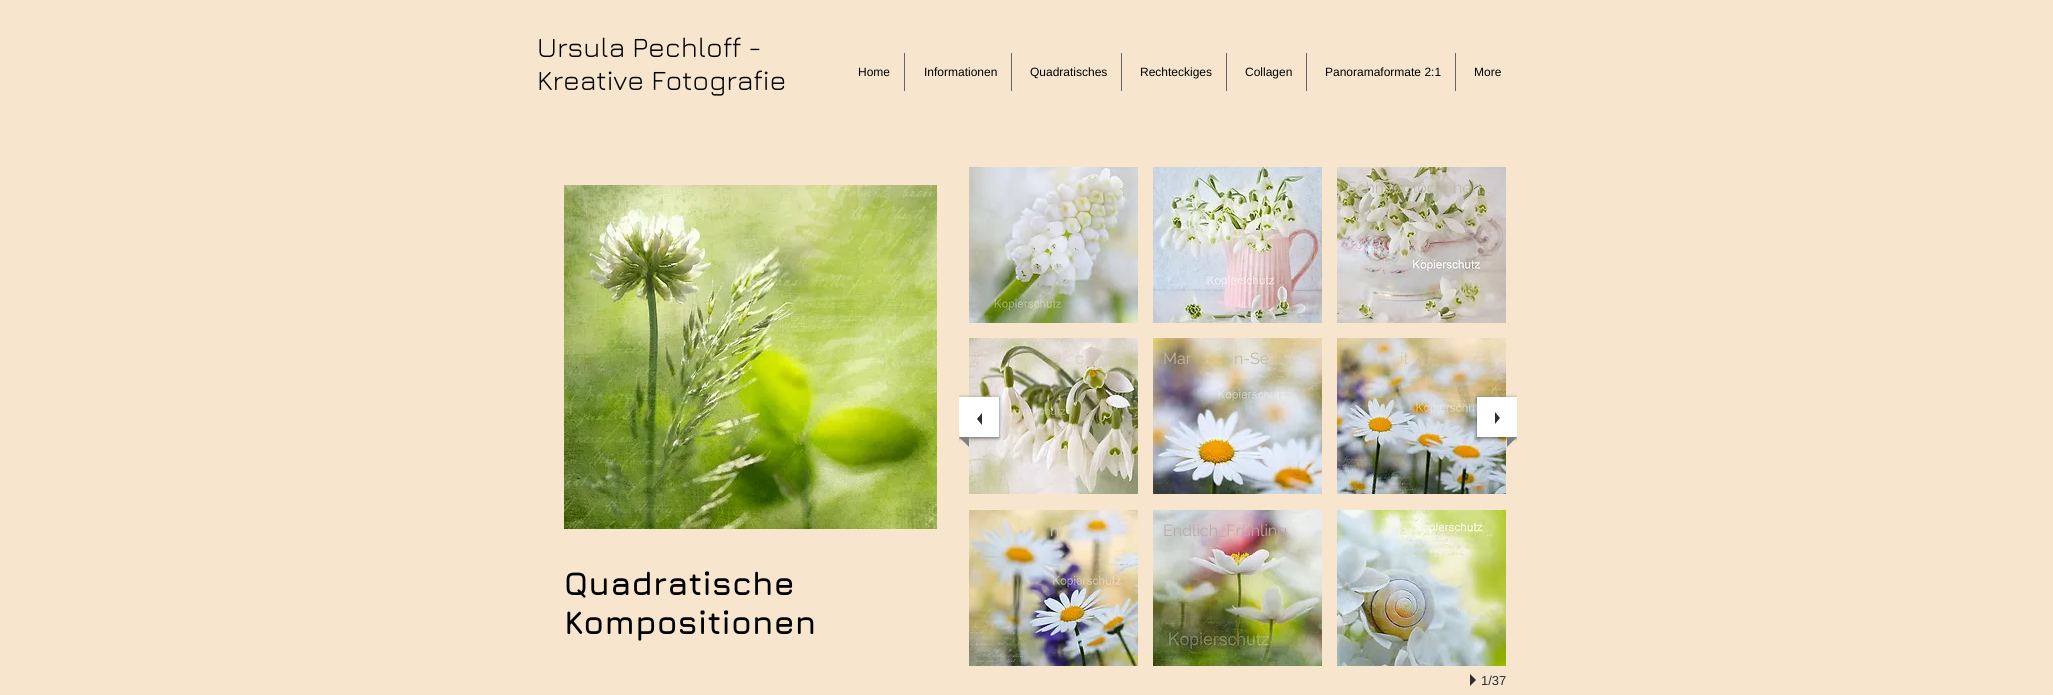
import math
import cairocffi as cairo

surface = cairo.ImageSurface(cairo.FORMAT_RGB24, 2053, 695)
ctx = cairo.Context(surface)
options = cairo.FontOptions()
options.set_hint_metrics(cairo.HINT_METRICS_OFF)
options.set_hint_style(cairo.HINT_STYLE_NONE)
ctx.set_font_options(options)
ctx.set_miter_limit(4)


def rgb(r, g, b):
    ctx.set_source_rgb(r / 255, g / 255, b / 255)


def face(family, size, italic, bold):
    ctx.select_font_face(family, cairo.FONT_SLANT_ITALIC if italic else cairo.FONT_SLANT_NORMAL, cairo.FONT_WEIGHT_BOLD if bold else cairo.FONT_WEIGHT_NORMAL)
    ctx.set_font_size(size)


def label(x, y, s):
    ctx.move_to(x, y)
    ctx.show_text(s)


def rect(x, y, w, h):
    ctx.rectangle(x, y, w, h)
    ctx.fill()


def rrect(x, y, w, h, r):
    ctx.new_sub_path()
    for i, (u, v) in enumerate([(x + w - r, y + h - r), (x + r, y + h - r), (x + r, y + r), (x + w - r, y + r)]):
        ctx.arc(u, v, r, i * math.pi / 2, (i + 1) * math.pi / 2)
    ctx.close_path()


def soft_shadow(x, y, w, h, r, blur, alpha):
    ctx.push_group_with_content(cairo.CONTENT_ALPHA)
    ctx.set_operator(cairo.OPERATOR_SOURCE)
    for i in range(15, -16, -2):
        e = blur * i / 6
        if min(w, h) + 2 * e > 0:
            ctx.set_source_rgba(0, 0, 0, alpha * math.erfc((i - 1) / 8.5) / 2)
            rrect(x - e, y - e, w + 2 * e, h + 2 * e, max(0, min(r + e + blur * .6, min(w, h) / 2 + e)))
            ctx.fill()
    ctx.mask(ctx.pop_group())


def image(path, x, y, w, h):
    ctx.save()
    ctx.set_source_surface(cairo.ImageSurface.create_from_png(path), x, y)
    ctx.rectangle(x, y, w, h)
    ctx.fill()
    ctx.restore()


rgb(247, 230, 205)
ctx.paint()
face('Jura', 28, 0, 0)
rgb(0, 0, 0)
label(537, 57, 'Ursula Pechloff -')
label(537, 90, 'Kreative Fotografie')
face('Liberation Sans', 12, 0, 0)
label(858, 76, 'Home')
rgb(102, 102, 102)
rect(904, 53, 1, 38)
rgb(0, 0, 0)
label(924, 76, 'Informationen')
rgb(102, 102, 102)
rect(1011, 53, 1, 38)
rgb(0, 0, 0)
label(1030, 76, 'Quadratisches')
rgb(102, 102, 102)
rect(1121, 53, 1, 38)
rgb(0, 0, 0)
label(1140, 76, 'Rechteckiges')
rgb(102, 102, 102)
rect(1226, 53, 1, 38)
rgb(0, 0, 0)
label(1245, 76, 'Collagen')
rgb(102, 102, 102)
rect(1306, 53, 1, 38)
rgb(0, 0, 0)
label(1325, 76, 'Panoramaformate 2:1')
rgb(102, 102, 102)
rect(1455, 53, 1, 38)
rgb(0, 0, 0)
label(1474, 76, 'More')
image('image0.png', 564, 185, 373, 344)
image('image1.png', 969, 167, 169, 156)
image('image2.png', 1153, 167, 169, 156)
image('image3.png', 1337, 167, 169, 156)
face('Raleway', 16, 0, 0)
rgb(190, 188, 168)
label(1347, 193, 'Schneeglöc')
label(1453, 193, 'hen,…')
image('image4.png', 969, 338, 169, 156)
rgb(210, 205, 187)
label(1075, 364, 'c')
image('image5.png', 1153, 338, 169, 156)
rgb(197, 185, 155)
label(1163, 364, 'Mar')
label(1234, 364, 'n-Se')
image('image6.png', 1337, 338, 169, 156)
rgb(209, 198, 173)
label(1400, 364, 'it')
image('image7.png', 969, 510, 169, 156)
rgb(216, 209, 186)
label(1050, 536, 'n')
image('image8.png', 1153, 510, 169, 156)
rgb(190, 169, 170)
label(1163, 536, 'Endlich_Frühling')
image('image9.png', 1337, 510, 169, 156)
rgb(224, 233, 201)
label(1486, 536, '…')
ctx.save()
ctx.rectangle(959, 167, 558, 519)
ctx.clip()
rgb(0, 0, 0)
soft_shadow(959, 398, 40, 40, 0, 2, 0.6)
ctx.restore()
rgb(255, 255, 255)
rect(959, 397, 40, 40)
rgb(47, 46, 46)
ctx.new_path()
ctx.move_to(982, 413)
ctx.line_to(982, 425)
ctx.line_to(977, 419)
ctx.close_path()
ctx.fill()
rgb(128, 128, 128)
ctx.new_path()
ctx.move_to(969, 437)
ctx.line_to(969, 447)
ctx.line_to(959, 437)
ctx.close_path()
ctx.fill()
ctx.save()
ctx.rectangle(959, 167, 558, 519)
ctx.clip()
rgb(0, 0, 0)
soft_shadow(1477, 398, 40, 40, 0, 2, 0.6)
ctx.restore()
rgb(255, 255, 255)
rect(1477, 397, 40, 40)
rgb(47, 46, 46)
ctx.new_path()
ctx.move_to(1495, 424)
ctx.line_to(1495, 412)
ctx.line_to(1500, 418)
ctx.close_path()
ctx.fill()
rgb(128, 128, 128)
ctx.new_path()
ctx.move_to(1507, 447)
ctx.line_to(1507, 437)
ctx.line_to(1517, 437)
ctx.close_path()
ctx.fill()
rgb(47, 46, 46)
ctx.new_path()
ctx.move_to(1470, 686)
ctx.line_to(1470, 674)
ctx.line_to(1476, 680)
ctx.close_path()
ctx.fill()
face('Liberation Sans', 13, 0, 0)
label(1481, 685, '1/37')
face('Jura', 33, 0, 1)
rgb(0, 0, 0)
label(564, 595, 'Quadratische')
label(564, 634, 'Kompositionen')
surface.write_to_png('render.png')
